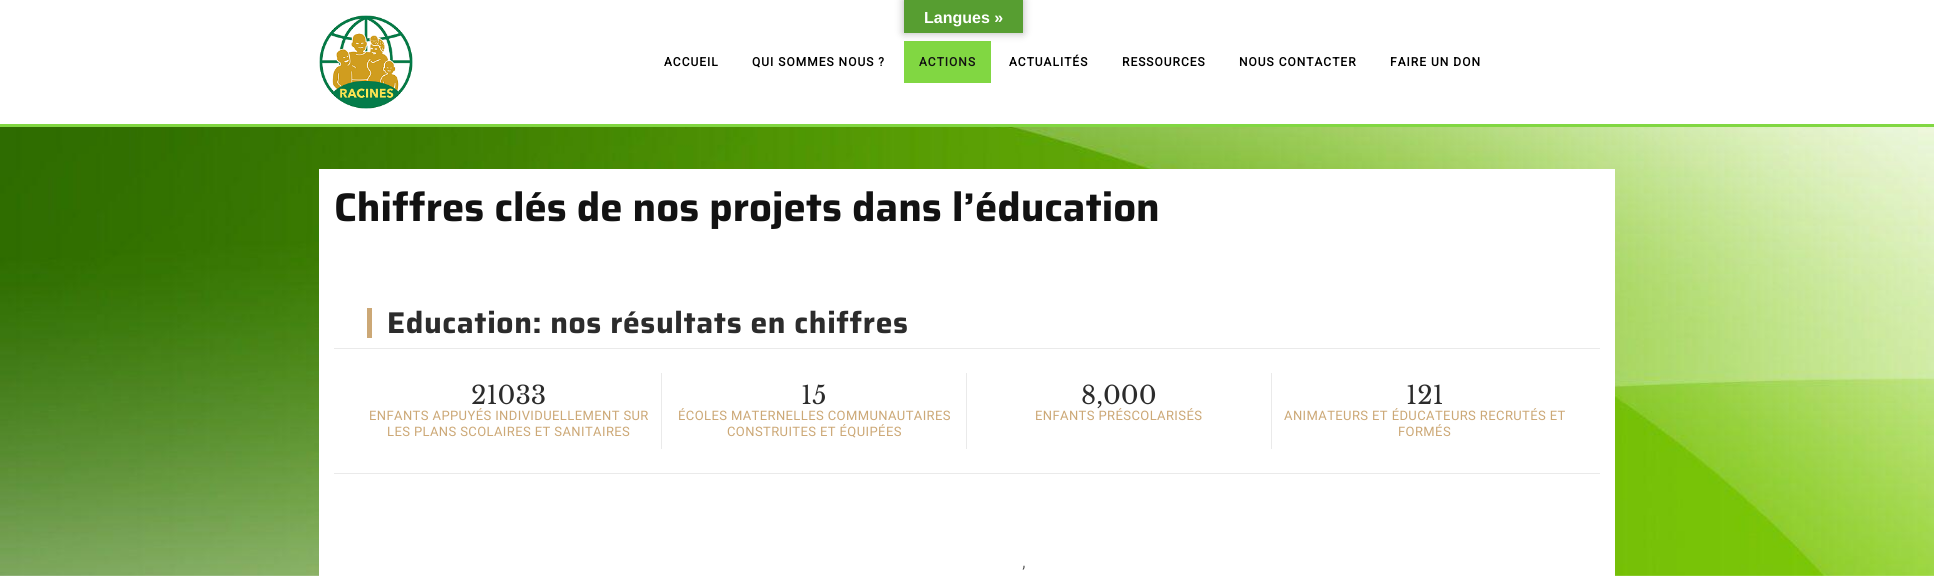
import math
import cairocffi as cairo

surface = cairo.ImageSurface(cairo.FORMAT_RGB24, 1934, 576)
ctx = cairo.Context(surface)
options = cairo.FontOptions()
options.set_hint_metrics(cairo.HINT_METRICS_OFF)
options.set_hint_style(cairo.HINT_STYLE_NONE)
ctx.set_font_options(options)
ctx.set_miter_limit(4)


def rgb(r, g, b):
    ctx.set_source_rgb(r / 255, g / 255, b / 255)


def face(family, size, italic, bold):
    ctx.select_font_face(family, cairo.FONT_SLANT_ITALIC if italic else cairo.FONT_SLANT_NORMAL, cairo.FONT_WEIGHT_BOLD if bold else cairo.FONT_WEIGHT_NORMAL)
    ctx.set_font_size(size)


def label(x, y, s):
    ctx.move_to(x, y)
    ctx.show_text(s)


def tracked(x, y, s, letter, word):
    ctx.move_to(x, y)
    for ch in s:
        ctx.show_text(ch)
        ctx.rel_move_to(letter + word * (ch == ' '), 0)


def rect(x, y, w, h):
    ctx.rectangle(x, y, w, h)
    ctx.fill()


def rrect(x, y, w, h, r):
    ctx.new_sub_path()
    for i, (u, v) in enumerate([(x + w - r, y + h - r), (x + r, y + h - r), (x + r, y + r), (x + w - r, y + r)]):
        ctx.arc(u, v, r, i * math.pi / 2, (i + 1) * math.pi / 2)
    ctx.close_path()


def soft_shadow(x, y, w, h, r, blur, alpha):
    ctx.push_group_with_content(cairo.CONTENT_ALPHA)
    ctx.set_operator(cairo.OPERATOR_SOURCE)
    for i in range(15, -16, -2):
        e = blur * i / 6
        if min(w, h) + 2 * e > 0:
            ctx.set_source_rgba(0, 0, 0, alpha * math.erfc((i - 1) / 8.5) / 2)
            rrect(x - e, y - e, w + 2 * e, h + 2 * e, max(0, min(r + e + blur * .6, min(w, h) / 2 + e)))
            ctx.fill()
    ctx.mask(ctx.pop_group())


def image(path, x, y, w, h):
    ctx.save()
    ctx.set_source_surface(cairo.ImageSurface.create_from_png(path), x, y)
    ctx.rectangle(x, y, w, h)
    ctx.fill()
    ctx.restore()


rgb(255, 255, 255)
ctx.paint()
image('image0.png', 0, 127, 1934, 449)
rgb(129, 215, 66)
rect(904, 41, 87, 42)
rgb(0, 0, 0)
soft_shadow(904, 0, 119, 33, 0, 4.5, 0.3)
rgb(87, 158, 49)
rect(904, 0, 119, 33)
face('Liberation Sans', 16, 0, 1)
rgb(255, 255, 255)
label(924, 23, 'Langues »')
rgb(129, 215, 66)
rect(0, 124, 1934, 3)
image('image1.png', 319, 15, 94, 94)
face('Heebo', 12, 0, 1)
rgb(0, 0, 0)
tracked(664, 66, 'ACCUEIL', 1, 0)
tracked(752, 66, 'QUI SOMMES NOUS ?', 1, 0)
rgb(18, 18, 18)
tracked(919, 66, 'ACTIONS', 1, 0)
rgb(0, 0, 0)
tracked(1009, 66, 'ACTUALITÉS', 1, 0)
tracked(1122, 66, 'RESSOURCES', 1, 0)
tracked(1239, 66, 'NOUS CONTACTER', 1, 0)
tracked(1390, 66, 'FAIRE UN DON', 1, 0)
rgb(255, 255, 255)
rect(319, 169, 1296, 407)
face('Saira', 40, 0, 1)
rgb(18, 18, 18)
label(334, 221, 'Chiffres clés de nos projets dans l’éducation')
rgb(204, 168, 118)
rect(367, 308, 5, 30)
face('Saira', 30, 0, 1)
rgb(44, 44, 44)
tracked(387, 333, 'Education: nos résultats en chiffres', 0.6, 0)
rgb(234, 234, 234)
rect(334, 348, 1266, 1)
rect(334, 473, 1266, 1)
rect(661, 373, 1, 76)
face('Libre Baskerville', 25, 0, 0)
rgb(44, 44, 44)
label(471, 404, '21033')
face('Heebo', 13, 0, 0)
rgb(204, 168, 118)
tracked(369, 420, 'ENFANTS APPUYÉS INDIVIDUELLEMENT SUR', 0.4, 0)
tracked(387, 436, 'LES PLANS SCOLAIRES ET SANITAIRES', 0.4, 0)
rgb(234, 234, 234)
rect(966, 373, 1, 76)
face('Libre Baskerville', 25, 0, 0)
rgb(44, 44, 44)
label(801, 404, '15')
face('Heebo', 13, 0, 0)
rgb(204, 168, 118)
tracked(678, 420, 'ÉCOLES MATERNELLES COMMUNAUTAIRES', 0.4, 0)
tracked(727, 436, 'CONSTRUITES ET ÉQUIPÉES', 0.4, 0)
rgb(234, 234, 234)
rect(1271, 373, 1, 76)
face('Libre Baskerville', 25, 0, 0)
rgb(44, 44, 44)
label(1081, 404, '8,000')
face('Heebo', 13, 0, 0)
rgb(204, 168, 118)
tracked(1035, 420, 'ENFANTS PRÉSCOLARISÉS', 0.4, 0)
face('Libre Baskerville', 25, 0, 0)
rgb(44, 44, 44)
label(1406, 404, '121')
face('Heebo', 13, 0, 0)
rgb(204, 168, 118)
tracked(1284, 420, 'ANIMATEURS ET ÉDUCATEURS RECRUTÉS ET', 0.4, 0)
tracked(1398, 436, 'FORMÉS', 0.4, 0)
face('Roboto Light', 19, 0, 0)
rgb(61, 61, 61)
tracked(1022, 580, '’', 1, 1)
surface.write_to_png('render.png')
